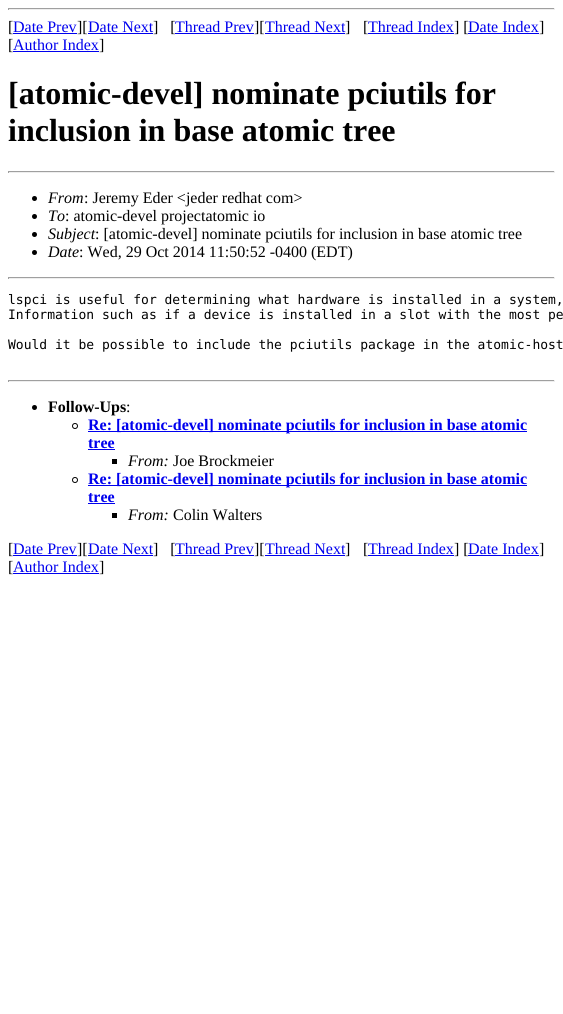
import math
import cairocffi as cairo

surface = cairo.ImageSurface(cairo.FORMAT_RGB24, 563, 1014)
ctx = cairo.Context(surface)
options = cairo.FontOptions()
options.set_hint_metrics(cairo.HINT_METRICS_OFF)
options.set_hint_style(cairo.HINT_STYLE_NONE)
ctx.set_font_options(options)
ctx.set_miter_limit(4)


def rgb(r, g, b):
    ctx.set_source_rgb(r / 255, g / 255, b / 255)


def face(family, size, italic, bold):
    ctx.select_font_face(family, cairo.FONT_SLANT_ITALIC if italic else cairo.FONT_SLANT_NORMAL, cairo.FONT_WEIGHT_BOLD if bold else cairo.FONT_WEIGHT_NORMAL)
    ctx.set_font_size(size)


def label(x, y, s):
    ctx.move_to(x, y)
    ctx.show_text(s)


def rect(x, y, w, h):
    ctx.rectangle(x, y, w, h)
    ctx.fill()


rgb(255, 255, 255)
ctx.paint()
rgb(159, 159, 159)
rect(8, 8, 547, 1)
rgb(238, 238, 238)
rect(554, 8, 1, 2)
rect(8, 9, 547, 1)
rgb(159, 159, 159)
rect(8, 8, 1, 2)
face('Liberation Serif', 16, 0, 0)
rgb(0, 0, 0)
label(8, 32, '[')
rgb(0, 0, 238)
label(13, 32, 'Date Prev')
rect(13, 33, 64, 1)
rgb(0, 0, 0)
label(77, 32, '][')
rgb(0, 0, 238)
label(88, 32, 'Date Next')
rect(88, 33, 65, 1)
rgb(0, 0, 0)
label(153, 32, ']   [')
rgb(0, 0, 238)
label(175, 32, 'Thread Prev')
rect(175, 33, 79, 1)
rgb(0, 0, 0)
label(254, 32, '][')
rgb(0, 0, 238)
label(265, 32, 'Thread Next')
rect(265, 33, 80, 1)
rgb(0, 0, 0)
label(345, 32, ']')
label(363, 32, '[')
rgb(0, 0, 238)
label(368, 32, 'Thread Index')
rect(368, 33, 86, 1)
rgb(0, 0, 0)
label(454, 32, '] [')
rgb(0, 0, 238)
label(468, 32, 'Date Index')
rect(468, 33, 71, 1)
rgb(0, 0, 0)
label(539, 32, ']')
label(8, 50, '[')
rgb(0, 0, 238)
label(13, 50, 'Author Index')
rect(13, 51, 86, 1)
rgb(0, 0, 0)
label(99, 50, ']')
face('Liberation Serif', 32, 0, 1)
label(8, 104, '[atomic-devel] nominate pciutils for')
label(8, 141, 'inclusion in base atomic tree')
rgb(159, 159, 159)
rect(8, 171, 547, 1)
rgb(238, 238, 238)
rect(554, 171, 1, 2)
rect(8, 172, 547, 1)
rgb(159, 159, 159)
rect(8, 171, 1, 2)
rgb(0, 0, 0)
ctx.new_path()
ctx.arc(34.5, 198.5, 2.5, 0, 2 * math.pi)
ctx.fill()
face('Liberation Serif', 16, 1, 0)
label(48, 203, 'From')
face('Liberation Serif', 16, 0, 0)
label(84, 203, ': Jeremy Eder <jeder redhat com>')
ctx.new_path()
ctx.arc(34.5, 216.5, 2.5, 0, 2 * math.pi)
ctx.fill()
face('Liberation Serif', 16, 1, 0)
label(48, 221, 'To')
face('Liberation Serif', 16, 0, 0)
label(65, 221, ': atomic-devel projectatomic io')
ctx.new_path()
ctx.arc(34.5, 234.5, 2.5, 0, 2 * math.pi)
ctx.fill()
face('Liberation Serif', 16, 1, 0)
label(48, 239, 'Subject')
face('Liberation Serif', 16, 0, 0)
label(95, 239, ': [atomic-devel] nominate pciutils for inclusion in base atomic tree')
ctx.new_path()
ctx.arc(34.5, 252.5, 2.5, 0, 2 * math.pi)
ctx.fill()
face('Liberation Serif', 16, 1, 0)
label(48, 257, 'Date')
face('Liberation Serif', 16, 0, 0)
label(79, 257, ': Wed, 29 Oct 2014 11:50:52 -0400 (EDT)')
rgb(159, 159, 159)
rect(8, 277, 547, 1)
rgb(238, 238, 238)
rect(554, 277, 1, 2)
rect(8, 278, 547, 1)
rgb(159, 159, 159)
rect(8, 277, 1, 2)
face('DejaVu Sans Mono', 13, 0, 0)
rgb(0, 0, 0)
label(8, 304, 'lspci is useful for determining what hardware is installed in a system,')
label(8, 319, 'Information such as if a device is installed in a slot with the most pe')
label(8, 349, 'Would it be possible to include the pciutils package in the atomic-host')
rgb(159, 159, 159)
rect(8, 380, 547, 1)
rgb(238, 238, 238)
rect(554, 380, 1, 2)
rect(8, 381, 547, 1)
rgb(159, 159, 159)
rect(8, 380, 1, 2)
rgb(0, 0, 0)
ctx.new_path()
ctx.arc(34.5, 407.5, 2.5, 0, 2 * math.pi)
ctx.fill()
face('Liberation Serif', 16, 0, 1)
label(48, 412, 'Follow-Ups')
face('Liberation Serif', 16, 0, 0)
label(126, 412, ':')
ctx.new_path()
ctx.arc(75, 426, 2.5, 0, 2 * math.pi)
ctx.set_line_width(1)
ctx.stroke()
rgb(0, 0, 238)
rect(88, 431, 439, 1)
face('Liberation Serif', 16, 0, 1)
label(88, 430, 'Re: [atomic-devel] nominate pciutils for inclusion in base atomic')
label(88, 448, 'tree')
rect(88, 449, 27, 1)
rgb(0, 0, 0)
rect(112, 459, 5, 5)
face('Liberation Serif', 16, 1, 0)
label(128, 466, 'From:')
face('Liberation Serif', 16, 0, 0)
label(173, 466, 'Joe Brockmeier')
ctx.new_path()
ctx.arc(75, 480, 2.5, 0, 2 * math.pi)
ctx.stroke()
rgb(0, 0, 238)
rect(88, 485, 439, 1)
face('Liberation Serif', 16, 0, 1)
label(88, 484, 'Re: [atomic-devel] nominate pciutils for inclusion in base atomic')
label(88, 502, 'tree')
rect(88, 503, 27, 1)
rgb(0, 0, 0)
rect(112, 513, 5, 5)
face('Liberation Serif', 16, 1, 0)
label(128, 520, 'From:')
face('Liberation Serif', 16, 0, 0)
label(173, 520, 'Colin Walters')
label(8, 554, '[')
rgb(0, 0, 238)
label(13, 554, 'Date Prev')
rect(13, 555, 64, 1)
rgb(0, 0, 0)
label(77, 554, '][')
rgb(0, 0, 238)
label(88, 554, 'Date Next')
rect(88, 555, 65, 1)
rgb(0, 0, 0)
label(153, 554, ']   [')
rgb(0, 0, 238)
label(175, 554, 'Thread Prev')
rect(175, 555, 79, 1)
rgb(0, 0, 0)
label(254, 554, '][')
rgb(0, 0, 238)
label(265, 554, 'Thread Next')
rect(265, 555, 80, 1)
rgb(0, 0, 0)
label(345, 554, ']')
label(363, 554, '[')
rgb(0, 0, 238)
label(368, 554, 'Thread Index')
rect(368, 555, 86, 1)
rgb(0, 0, 0)
label(454, 554, '] [')
rgb(0, 0, 238)
label(468, 554, 'Date Index')
rect(468, 555, 71, 1)
rgb(0, 0, 0)
label(539, 554, ']')
label(8, 572, '[')
rgb(0, 0, 238)
label(13, 572, 'Author Index')
rect(13, 573, 86, 1)
rgb(0, 0, 0)
label(99, 572, ']')
surface.write_to_png('render.png')
